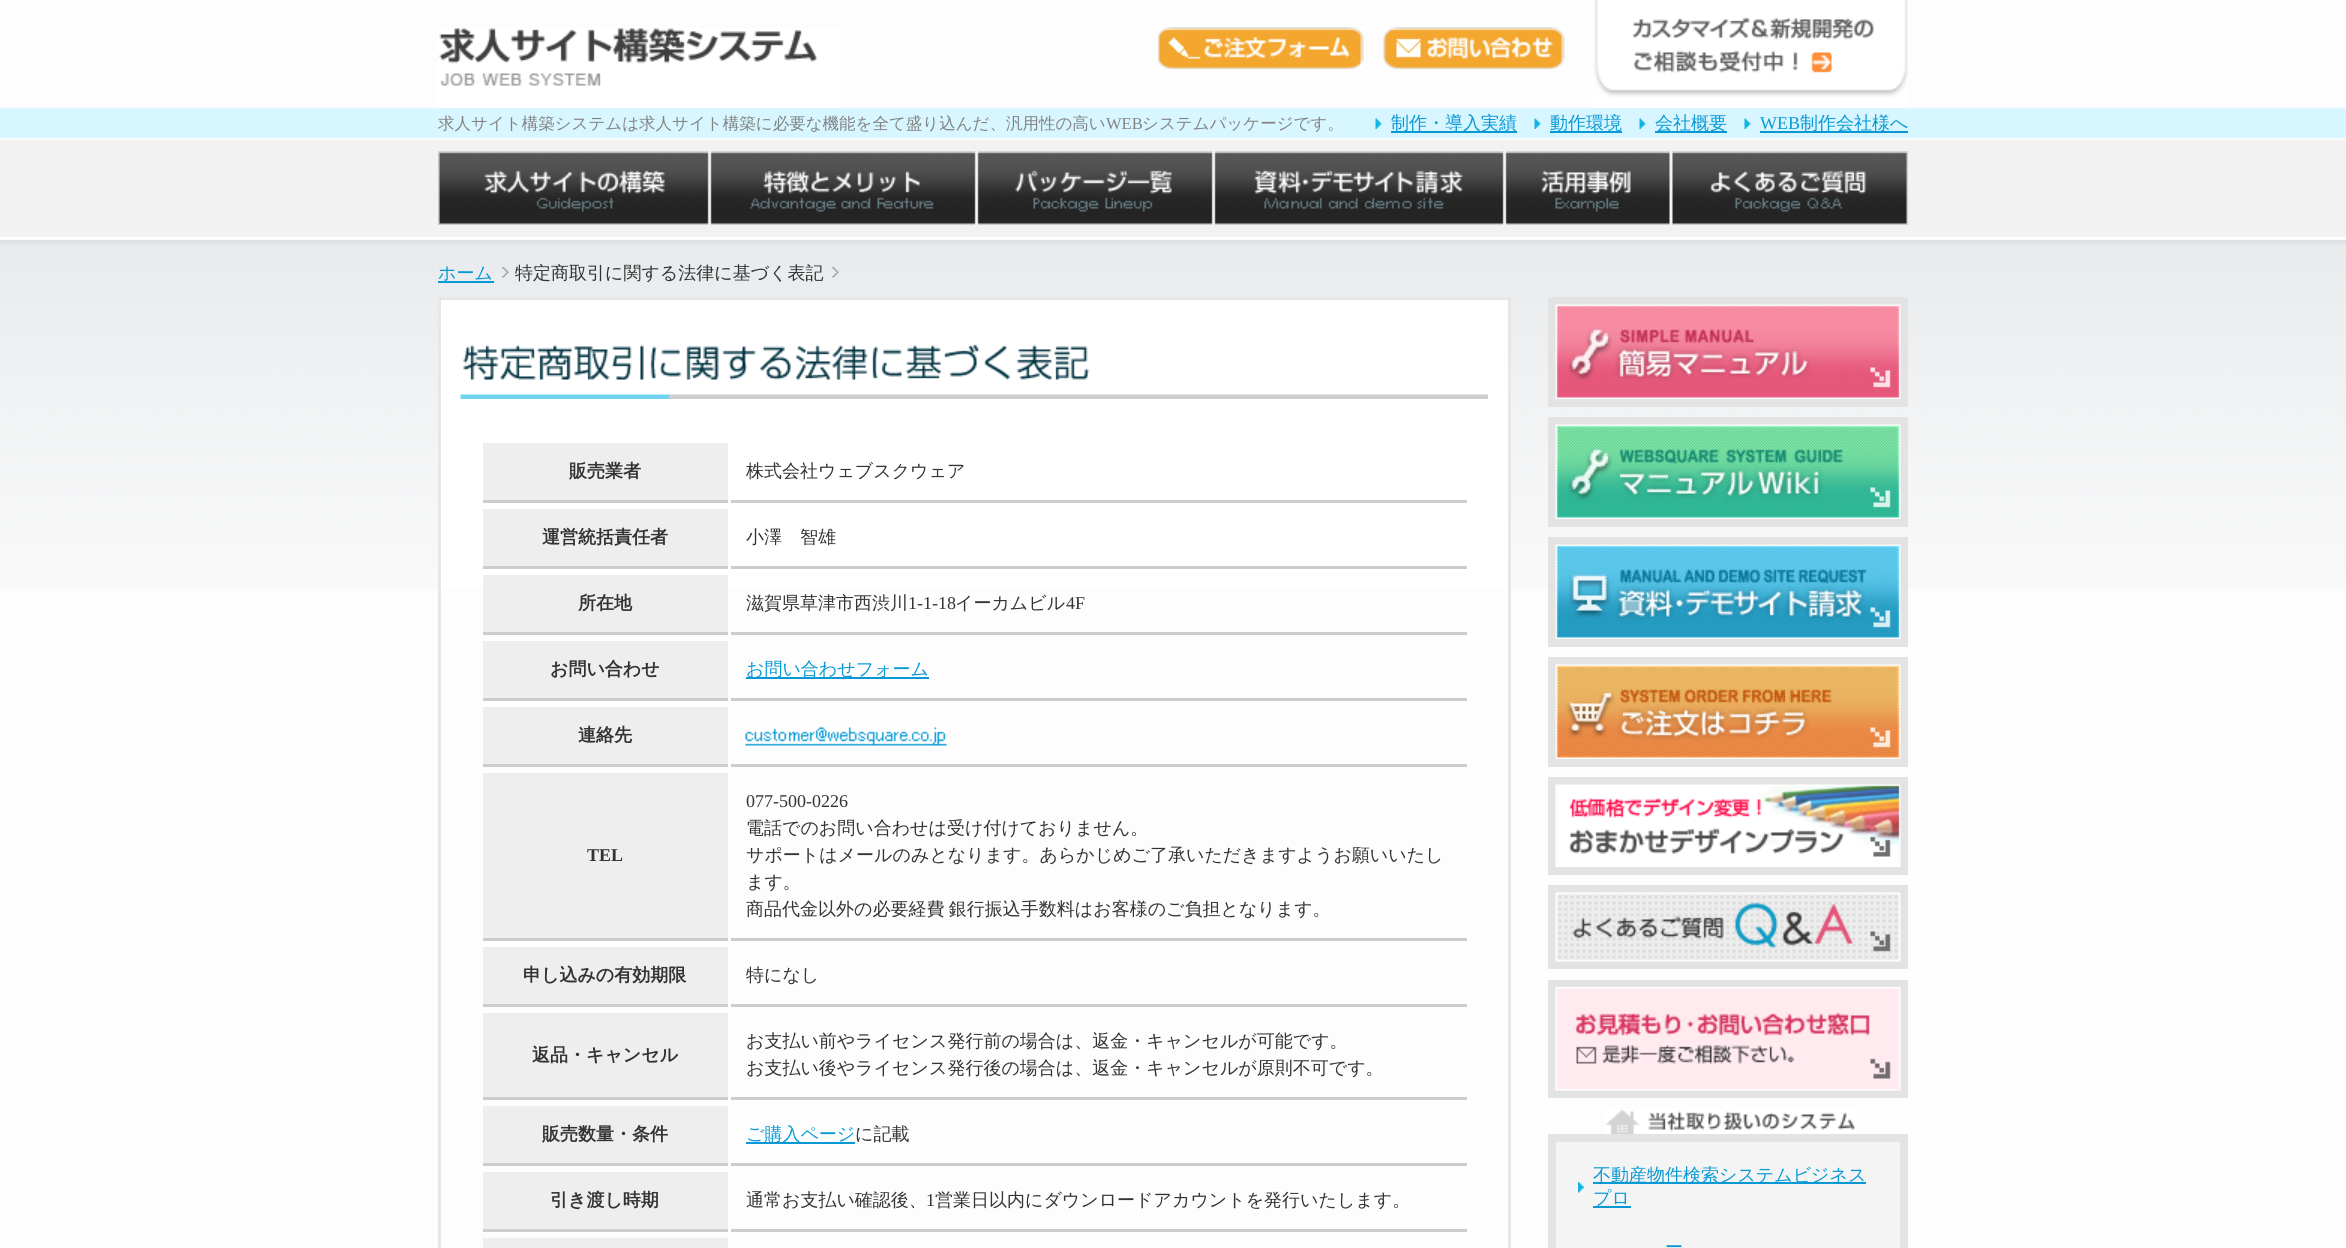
import math
import cairocffi as cairo

surface = cairo.ImageSurface(cairo.FORMAT_RGB24, 2346, 1248)
ctx = cairo.Context(surface)
options = cairo.FontOptions()
options.set_hint_metrics(cairo.HINT_METRICS_OFF)
options.set_hint_style(cairo.HINT_STYLE_NONE)
ctx.set_font_options(options)
ctx.set_miter_limit(4)


def rgb(r, g, b):
    ctx.set_source_rgb(r / 255, g / 255, b / 255)


def face(family, size, italic, bold):
    ctx.select_font_face(family, cairo.FONT_SLANT_ITALIC if italic else cairo.FONT_SLANT_NORMAL, cairo.FONT_WEIGHT_BOLD if bold else cairo.FONT_WEIGHT_NORMAL)
    ctx.set_font_size(size)


def label(x, y, s):
    ctx.move_to(x, y)
    ctx.show_text(s)


def tracked(x, y, s, letter, word):
    ctx.move_to(x, y)
    for ch in s:
        ctx.show_text(ch)
        ctx.rel_move_to(letter + word * (ch == ' '), 0)


def rect(x, y, w, h):
    ctx.rectangle(x, y, w, h)
    ctx.fill()


def image(path, x, y, w, h):
    ctx.save()
    ctx.set_source_surface(cairo.ImageSurface.create_from_png(path), x, y)
    ctx.rectangle(x, y, w, h)
    ctx.fill()
    ctx.restore()


rgb(253, 253, 254)
ctx.paint()
image('image0.png', 0, 107, 2346, 482)
image('image1.png', 438, 28, 403, 80)
image('image2.png', 1158, 27, 206, 42)
image('image3.png', 1383, 27, 182, 42)
image('image4.png', 1592, 0, 316, 108)
face('WenQuanYi Zen Hei Medium', 16.5, 0, 0)
rgb(131, 131, 131)
label(438, 129, '求人サイト構築システムは求人サイト構築に必要な機能を全て盛り込んだ、汎用性の高い')
face('Liberation Serif', 16.5, 0, 0)
label(1106, 129, 'WEB')
face('WenQuanYi Zen Hei Medium', 16.5, 0, 0)
label(1142, 129, 'システムパッケージです。')
image('image5.png', 1375, 118, 7, 11)
rgb(8, 153, 213)
rect(1391, 131, 126, 2)
face('WenQuanYi Zen Hei Medium', 18, 0, 0)
label(1391, 129, '制作・導入実績')
image('image6.png', 1534, 118, 7, 11)
rect(1550, 131, 72, 2)
label(1550, 129, '動作環境')
image('image6.png', 1639, 118, 7, 11)
rect(1655, 131, 72, 2)
label(1655, 129, '会社概要')
image('image6.png', 1744, 118, 7, 11)
face('Liberation Serif', 18, 0, 0)
label(1760, 129, 'WEB')
rect(1760, 131, 148, 2)
face('WenQuanYi Zen Hei Medium', 18, 0, 0)
label(1800, 129, '制作会社様へ')
image('image7.png', 438, 151, 271, 74)
image('image8.png', 438, 151, 271, 73)
image('image9.png', 710, 151, 266, 74)
image('image10.png', 710, 151, 266, 73)
image('image11.png', 976, 151, 237, 74)
image('image12.png', 977, 151, 236, 74)
image('image13.png', 1214, 151, 290, 74)
image('image14.png', 1214, 151, 290, 73)
image('image15.png', 1505, 151, 165, 74)
image('image16.png', 1505, 151, 165, 73)
image('image17.png', 1672, 151, 236, 74)
image('image18.png', 1672, 151, 236, 73)
image('image19.png', 502, 267, 7, 11)
label(438, 279, 'ホーム')
rect(438, 281, 56, 2)
image('image20.png', 832, 267, 7, 11)
rgb(51, 51, 51)
label(515, 279, '特定商取引に関する法律に基づく表記')
rgb(255, 255, 255)
rect(441, 300, 1067, 289)
ctx.rectangle(439.5, 298.5, 1070, 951)
rgb(231, 231, 231)
ctx.set_line_width(3)
ctx.stroke()
image('image21.png', 460, 344, 1028, 55)
rgb(238, 238, 238)
rect(483, 443, 245, 57)
rgb(204, 204, 204)
rect(483, 500, 245, 3)
face('WenQuanYi Zen Hei', 18, 0, 1)
rgb(51, 51, 51)
label(569, 477, '販売業者')
rgb(204, 204, 204)
rect(731, 500, 736, 3)
face('WenQuanYi Zen Hei Medium', 18, 0, 0)
rgb(51, 51, 51)
label(746, 477, '株式会社ウェブスクウェア')
rgb(238, 238, 238)
rect(483, 509, 245, 57)
rgb(204, 204, 204)
rect(483, 566, 245, 3)
face('WenQuanYi Zen Hei', 18, 0, 1)
rgb(51, 51, 51)
label(542, 543, '運営統括責任者')
rgb(204, 204, 204)
rect(731, 566, 736, 3)
face('WenQuanYi Zen Hei Medium', 18, 0, 0)
rgb(51, 51, 51)
label(746, 543, '小澤　智雄')
rgb(238, 238, 238)
rect(483, 575, 245, 57)
rgb(204, 204, 204)
rect(483, 632, 245, 3)
face('WenQuanYi Zen Hei', 18, 0, 1)
rgb(51, 51, 51)
label(578, 609, '所在地')
rgb(204, 204, 204)
rect(731, 632, 736, 3)
face('WenQuanYi Zen Hei Medium', 18, 0, 0)
rgb(51, 51, 51)
label(746, 609, '滋賀県草津市西渋川')
face('Liberation Serif', 18, 0, 0)
label(908, 609, '1-1-18')
face('WenQuanYi Zen Hei Medium', 18, 0, 0)
label(955, 609, 'イーカムビル')
face('Liberation Serif', 18, 0, 0)
label(1066, 609, '4F')
rgb(238, 238, 238)
rect(483, 641, 245, 57)
rgb(204, 204, 204)
rect(483, 698, 245, 3)
face('WenQuanYi Zen Hei', 18, 0, 1)
rgb(51, 51, 51)
label(550, 675, 'お問い合わせ')
rgb(204, 204, 204)
rect(731, 698, 736, 3)
rgb(8, 153, 213)
rect(746, 677, 183, 2)
face('WenQuanYi Zen Hei Medium', 18, 0, 0)
label(746, 675, 'お問い合わせフォーム')
rgb(238, 238, 238)
rect(483, 707, 245, 57)
rgb(204, 204, 204)
rect(483, 764, 245, 3)
face('WenQuanYi Zen Hei', 18, 0, 1)
rgb(51, 51, 51)
label(578, 741, '連絡先')
rgb(204, 204, 204)
rect(731, 764, 736, 3)
image('image22.png', 745, 727, 202, 19)
rgb(238, 238, 238)
rect(483, 773, 245, 165)
rgb(204, 204, 204)
rect(483, 938, 245, 3)
face('Liberation Serif', 18, 0, 1)
rgb(51, 51, 51)
label(587, 861, 'TEL')
rgb(204, 204, 204)
rect(731, 938, 736, 3)
face('Liberation Serif', 18, 0, 0)
rgb(51, 51, 51)
label(746, 807, '077-500-0226')
face('WenQuanYi Zen Hei Medium', 18, 0, 0)
label(746, 834, '電話でのお問い合わせは受け付けておりません。')
label(746, 861, 'サポートはメールのみとなります。あらかじめご了承いただきますようお願いいたし')
label(746, 888, 'ます。')
tracked(746, 915, '商品代金以外の必要経費 銀行振込手数料はお客様のご負担となります。', 0, -1)
rgb(238, 238, 238)
rect(483, 947, 245, 57)
rgb(204, 204, 204)
rect(483, 1004, 245, 3)
face('WenQuanYi Zen Hei', 18, 0, 1)
rgb(51, 51, 51)
label(523, 981, '申し込みの有効期限')
rgb(204, 204, 204)
rect(731, 1004, 736, 3)
face('WenQuanYi Zen Hei Medium', 18, 0, 0)
rgb(51, 51, 51)
label(746, 981, '特になし')
rgb(238, 238, 238)
rect(483, 1013, 245, 84)
rgb(204, 204, 204)
rect(483, 1097, 245, 3)
face('WenQuanYi Zen Hei', 18, 0, 1)
rgb(51, 51, 51)
label(532, 1061, '返品・キャンセル')
rgb(204, 204, 204)
rect(731, 1097, 736, 3)
face('WenQuanYi Zen Hei Medium', 18, 0, 0)
rgb(51, 51, 51)
label(746, 1047, 'お支払い前やライセンス発行前の場合は、返金・キャンセルが可能です。')
label(746, 1074, 'お支払い後やライセンス発行後の場合は、返金・キャンセルが原則不可です。')
rgb(238, 238, 238)
rect(483, 1106, 245, 57)
rgb(204, 204, 204)
rect(483, 1163, 245, 3)
face('WenQuanYi Zen Hei', 18, 0, 1)
rgb(51, 51, 51)
label(542, 1140, '販売数量・条件')
rgb(204, 204, 204)
rect(731, 1163, 736, 3)
rgb(8, 153, 213)
rect(746, 1142, 109, 2)
face('WenQuanYi Zen Hei Medium', 18, 0, 0)
label(746, 1140, 'ご購入ページ')
rgb(51, 51, 51)
label(855, 1140, 'に記載')
rgb(238, 238, 238)
rect(483, 1172, 245, 57)
rgb(204, 204, 204)
rect(483, 1229, 245, 3)
face('WenQuanYi Zen Hei', 18, 0, 1)
rgb(51, 51, 51)
label(550, 1206, '引き渡し時期')
rgb(204, 204, 204)
rect(731, 1229, 736, 3)
face('WenQuanYi Zen Hei Medium', 18, 0, 0)
rgb(51, 51, 51)
label(746, 1206, '通常お支払い確認後、')
face('Liberation Serif', 18, 0, 0)
label(926, 1206, '1')
face('WenQuanYi Zen Hei Medium', 18, 0, 0)
label(935, 1206, '営業日以内にダウンロードアカウントを発行いたします。')
rgb(238, 238, 238)
rect(483, 1238, 245, 10)
ctx.rectangle(1552, 301, 352, 102)
rgb(227, 227, 227)
ctx.set_line_width(8)
ctx.stroke()
image('image23.png', 1555, 304, 346, 95)
ctx.rectangle(1552, 421, 352, 102)
ctx.stroke()
image('image24.png', 1555, 424, 346, 95)
ctx.rectangle(1552, 541, 352, 102)
ctx.stroke()
image('image25.png', 1555, 544, 346, 95)
ctx.rectangle(1552, 661, 352, 102)
ctx.stroke()
image('image26.png', 1555, 664, 346, 95)
ctx.rectangle(1552, 781, 352, 90)
ctx.stroke()
image('image27.png', 1555, 784, 346, 83)
ctx.rectangle(1552, 889, 352, 76)
ctx.stroke()
image('image28.png', 1555, 892, 346, 70)
ctx.rectangle(1552, 984, 352, 110)
ctx.stroke()
image('image29.png', 1555, 987, 346, 104)
image('image30.png', 1605, 1109, 251, 25)
rgb(244, 244, 244)
ctx.rectangle(1552, 1138, 352, 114)
ctx.fill_preserve()
rgb(227, 227, 227)
ctx.stroke()
image('image31.png', 1578, 1182, 6, 11)
rgb(8, 153, 213)
rect(1593, 1182, 273, 2)
label(1593, 1181, '不動産物件検索システムビジネス')
rect(1593, 1206, 38, 2)
label(1593, 1204, 'プロ')
label(1665, 1253, 'ー')
surface.write_to_png('render.png')
